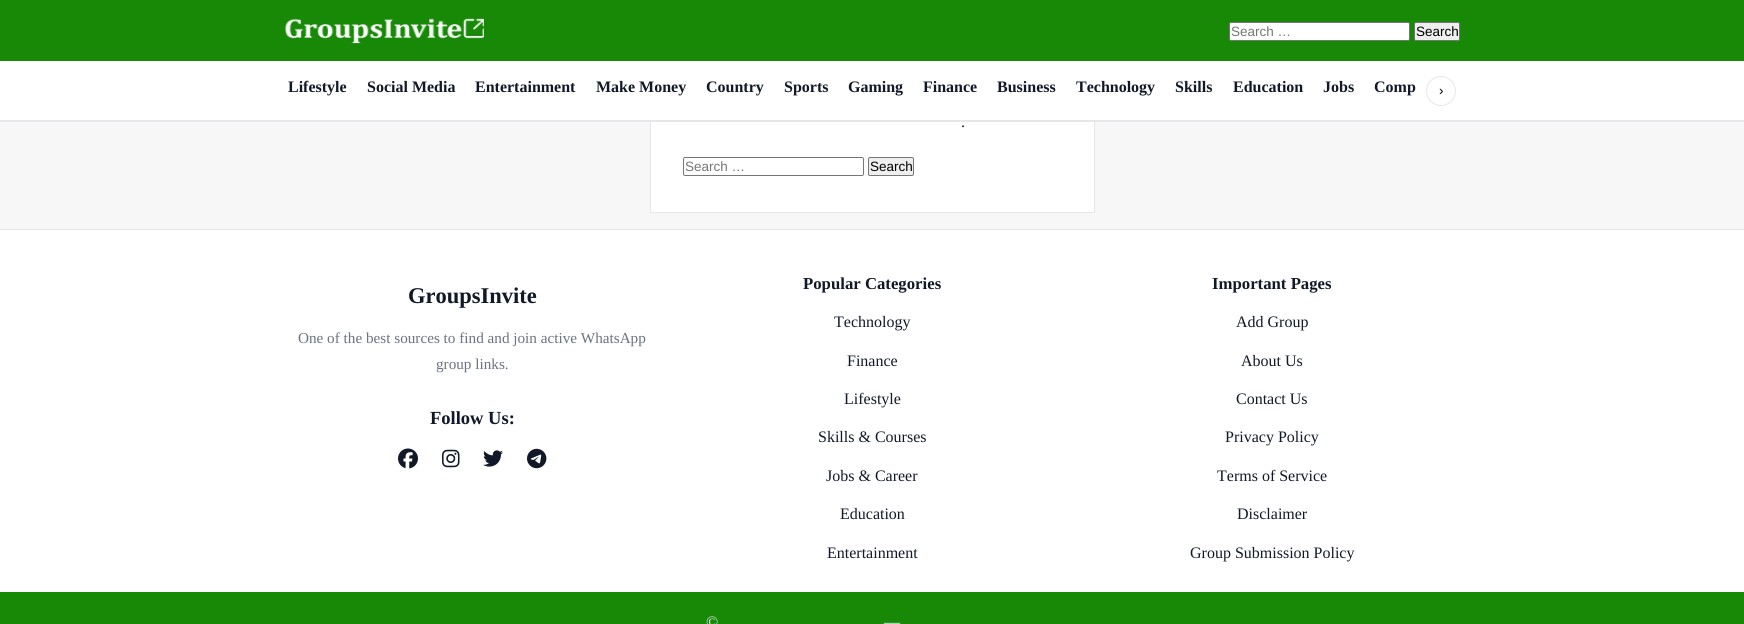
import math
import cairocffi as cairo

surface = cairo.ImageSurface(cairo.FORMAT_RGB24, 1744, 624)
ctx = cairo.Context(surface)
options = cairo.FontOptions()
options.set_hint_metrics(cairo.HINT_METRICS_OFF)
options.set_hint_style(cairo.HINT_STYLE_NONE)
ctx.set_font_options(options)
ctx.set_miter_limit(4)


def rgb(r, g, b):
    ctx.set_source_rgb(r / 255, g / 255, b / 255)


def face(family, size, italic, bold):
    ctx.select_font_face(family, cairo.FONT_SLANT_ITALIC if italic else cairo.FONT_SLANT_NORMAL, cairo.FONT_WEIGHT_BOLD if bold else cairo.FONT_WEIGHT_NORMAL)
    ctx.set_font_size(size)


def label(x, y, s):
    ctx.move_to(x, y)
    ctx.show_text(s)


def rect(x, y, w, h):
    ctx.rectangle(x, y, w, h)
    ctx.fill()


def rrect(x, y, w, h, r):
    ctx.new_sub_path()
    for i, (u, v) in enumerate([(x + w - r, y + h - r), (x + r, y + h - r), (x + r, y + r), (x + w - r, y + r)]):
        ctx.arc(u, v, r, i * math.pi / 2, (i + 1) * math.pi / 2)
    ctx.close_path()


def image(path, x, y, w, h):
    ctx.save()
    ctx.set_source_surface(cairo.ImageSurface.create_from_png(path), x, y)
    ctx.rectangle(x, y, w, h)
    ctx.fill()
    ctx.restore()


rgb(247, 247, 247)
ctx.paint()
rgb(255, 255, 255)
rect(651, 122, 443, 90)
ctx.rectangle(650.5, 1.5, 444, 211)
rgb(229, 231, 235)
ctx.set_line_width(1)
ctx.stroke()
rgb(255, 255, 255)
rect(0, 61, 1744, 59)
rgb(229, 231, 235)
rect(0, 120, 1744, 2)
rgb(23, 137, 7)
rect(0, 0, 1744, 61)
image('image0.png', 285, 18, 199, 26)
rgb(255, 255, 255)
rrect(1229.5, 22.5, 180, 18, 1.5)
ctx.fill_preserve()
rgb(118, 118, 118)
ctx.stroke()
face('Liberation Sans', 13.5, 0, 0)
rgb(117, 117, 117)
label(1231, 36, 'Search …')
rgb(239, 239, 239)
rrect(1414.5, 22.5, 45, 18, 1.5)
ctx.fill_preserve()
rgb(118, 118, 118)
ctx.stroke()
rgb(0, 0, 0)
label(1416, 36, 'Search')
face('Liberation Serif', 16, 0, 1)
rgb(17, 24, 39)
label(288, 92, 'Lifestyle')
label(367, 92, 'Social Media')
label(475, 92, 'Entertainment')
label(596, 92, 'Make Money')
label(706, 92, 'Country')
label(784, 92, 'Sports')
label(848, 92, 'Gaming')
label(923, 92, 'Finance')
label(997, 92, 'Business')
label(1076, 92, 'Technology')
label(1175, 92, 'Skills')
label(1233, 92, 'Education')
label(1323, 92, 'Jobs')
label(1374, 92, 'Comp')
ctx.new_path()
ctx.arc(1441, 91, 14.5, 0, 2 * math.pi)
rgb(229, 231, 235)
ctx.stroke()
face('Liberation Sans', 13.5, 0, 0)
rgb(0, 0, 0)
label(1439, 95, '›')
face('Liberation Serif', 16, 0, 0)
rgb(17, 24, 39)
label(961, 127, '.')
rrect(683.5, 157.5, 180, 18, 1.5)
rgb(118, 118, 118)
ctx.stroke()
face('Liberation Sans', 13.5, 0, 0)
rgb(117, 117, 117)
label(685, 171, 'Search …')
rgb(239, 239, 239)
rrect(868.5, 157.5, 45, 18, 1.5)
ctx.fill_preserve()
rgb(118, 118, 118)
ctx.stroke()
rgb(0, 0, 0)
label(870, 171, 'Search')
rgb(255, 255, 255)
rect(0, 230, 1744, 362)
rgb(229, 231, 235)
rect(0, 229, 1744, 1)
face('Liberation Serif', 22.5, 0, 1)
rgb(17, 24, 39)
label(408, 303, 'GroupsInvite')
face('Liberation Serif', 15.2, 0, 0)
rgb(107, 114, 128)
label(298, 343, 'One of the best sources to find and join active WhatsApp')
label(436, 369, 'group links.')
face('Liberation Serif', 18.5, 0, 1)
rgb(17, 24, 39)
label(430, 424, 'Follow Us:')
image('image1.png', 398, 448, 20, 21)
image('image2.png', 442, 449, 18, 19)
image('image3.png', 483, 450, 20, 17)
image('image4.png', 527, 448, 20, 21)
face('Liberation Serif', 16.75, 0, 1)
label(803, 289, 'Popular Categories')
face('Liberation Serif', 16, 0, 0)
label(834, 327, 'Technology')
label(847, 366, 'Finance')
label(844, 404, 'Lifestyle')
label(818, 442, 'Skills & Courses')
label(826, 481, 'Jobs & Career')
label(840, 519, 'Education')
label(827, 558, 'Entertainment')
face('Liberation Serif', 16.75, 0, 1)
label(1212, 289, 'Important Pages')
face('Liberation Serif', 16, 0, 0)
label(1236, 327, 'Add Group')
label(1241, 366, 'About Us')
label(1236, 404, 'Contact Us')
label(1225, 442, 'Privacy Policy')
label(1217, 481, 'Terms of Service')
label(1237, 519, 'Disclaimer')
label(1190, 558, 'Group Submission Policy')
rgb(23, 137, 7)
rect(0, 592, 1744, 32)
rgb(239, 246, 255)
label(706, 627, '©')
label(884, 627, '—')
surface.write_to_png('render.png')
